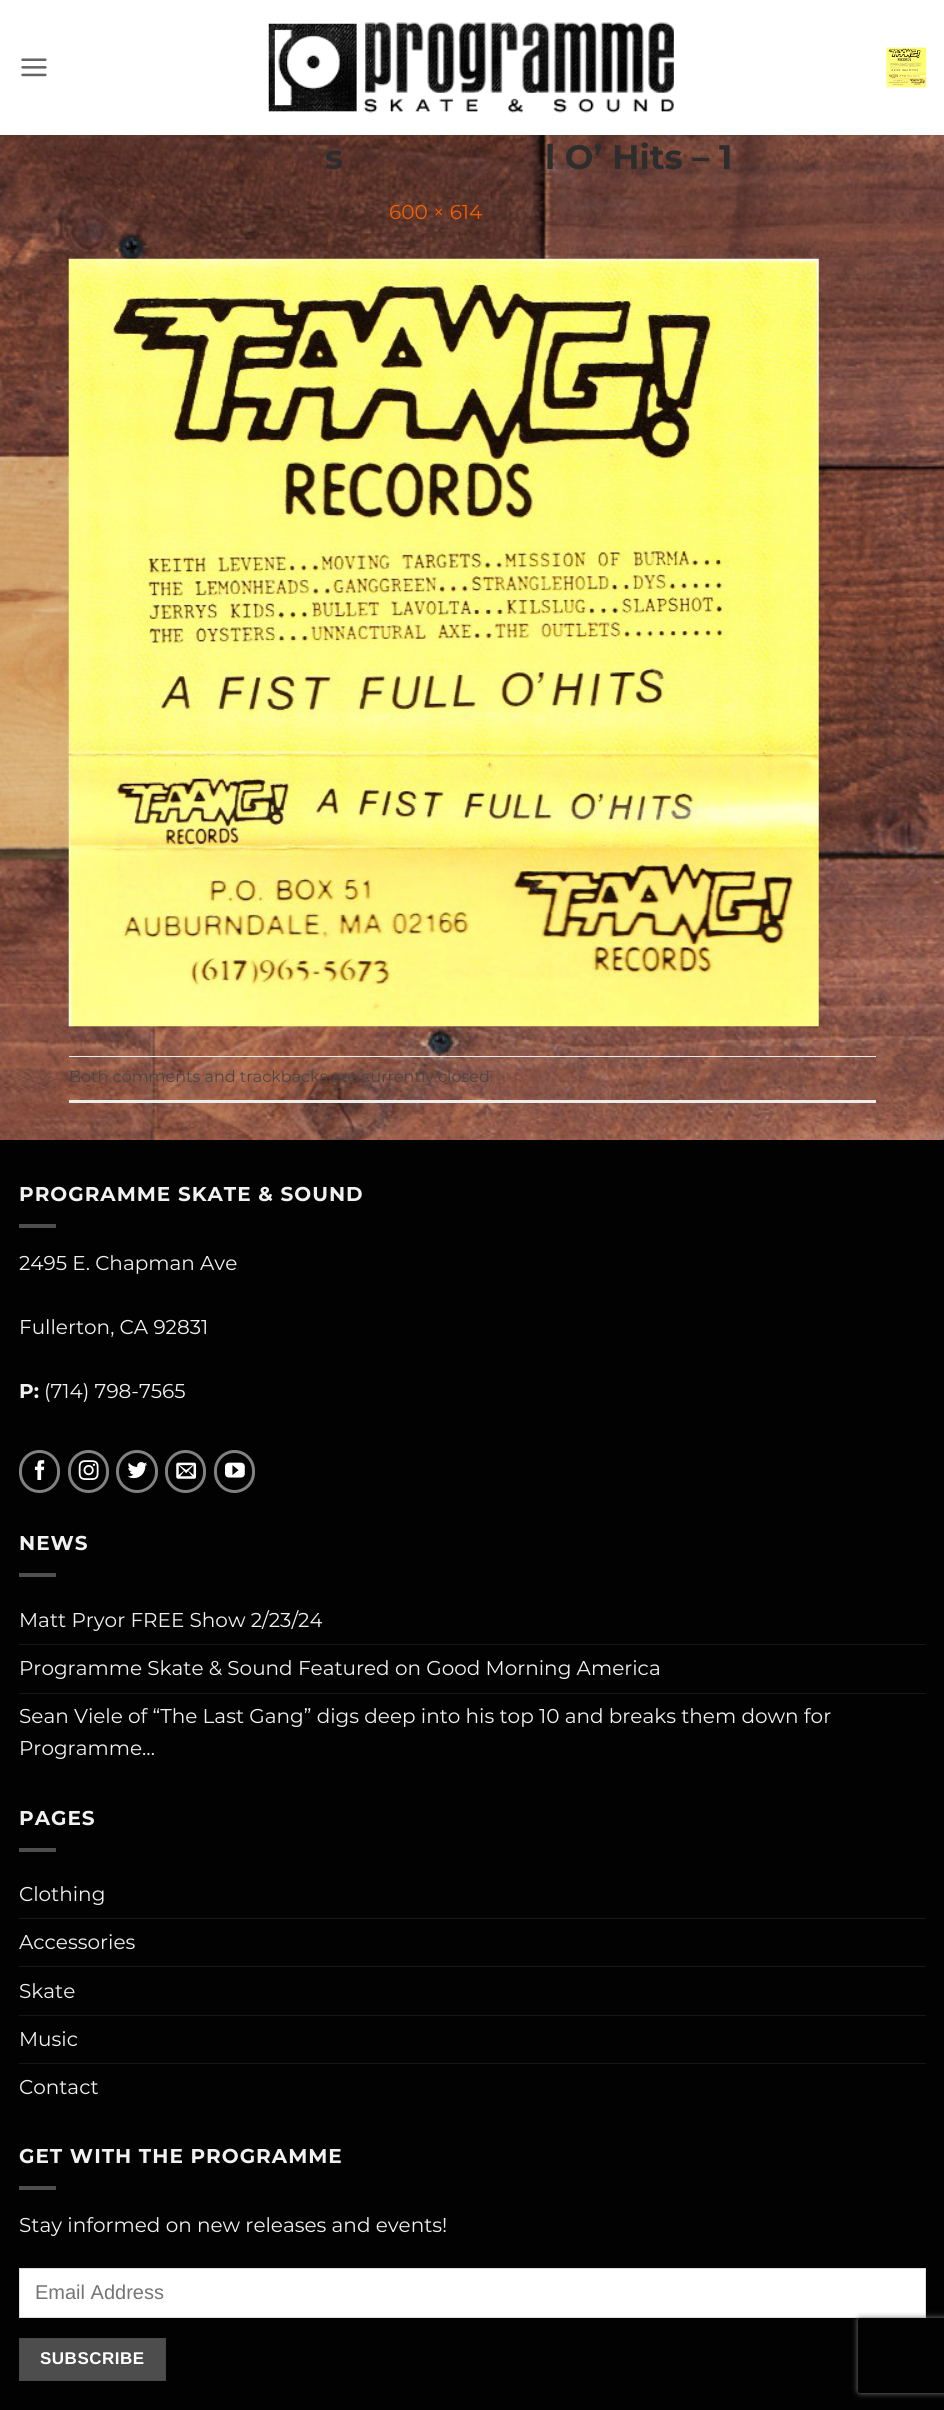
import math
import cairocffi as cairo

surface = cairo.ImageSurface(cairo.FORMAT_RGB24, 944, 2410)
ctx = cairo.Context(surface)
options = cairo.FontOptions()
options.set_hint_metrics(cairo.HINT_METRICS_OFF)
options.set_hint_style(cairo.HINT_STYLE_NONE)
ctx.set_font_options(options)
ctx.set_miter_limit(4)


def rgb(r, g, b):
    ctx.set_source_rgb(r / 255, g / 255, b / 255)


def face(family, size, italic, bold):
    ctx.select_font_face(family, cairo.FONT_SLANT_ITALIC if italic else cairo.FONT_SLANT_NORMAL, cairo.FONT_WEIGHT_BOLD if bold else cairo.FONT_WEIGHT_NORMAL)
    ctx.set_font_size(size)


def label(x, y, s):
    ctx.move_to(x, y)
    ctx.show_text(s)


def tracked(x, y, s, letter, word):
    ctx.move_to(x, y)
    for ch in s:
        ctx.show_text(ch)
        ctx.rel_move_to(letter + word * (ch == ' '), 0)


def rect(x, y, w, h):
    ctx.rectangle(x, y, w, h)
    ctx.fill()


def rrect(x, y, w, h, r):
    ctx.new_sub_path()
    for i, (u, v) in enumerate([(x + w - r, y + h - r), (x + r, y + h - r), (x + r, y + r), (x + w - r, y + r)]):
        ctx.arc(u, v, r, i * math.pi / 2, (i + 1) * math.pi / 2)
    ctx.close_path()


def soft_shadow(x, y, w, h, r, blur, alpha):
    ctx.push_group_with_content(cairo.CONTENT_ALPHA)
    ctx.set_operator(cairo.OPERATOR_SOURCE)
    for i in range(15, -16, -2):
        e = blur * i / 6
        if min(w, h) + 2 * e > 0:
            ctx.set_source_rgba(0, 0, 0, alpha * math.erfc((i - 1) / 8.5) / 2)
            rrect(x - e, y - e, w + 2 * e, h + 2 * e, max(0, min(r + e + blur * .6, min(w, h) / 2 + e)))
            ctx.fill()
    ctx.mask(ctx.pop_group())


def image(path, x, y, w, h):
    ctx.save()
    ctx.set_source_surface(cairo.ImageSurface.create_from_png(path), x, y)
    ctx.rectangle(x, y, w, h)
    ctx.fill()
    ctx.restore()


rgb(255, 255, 255)
ctx.paint()
image('image0.png', 21, 58, 26, 19)
image('image1.png', 268, 22, 406, 91)
image('image2.png', 886, 47, 41, 41)
image('image3.png', 0, 135, 944, 1005)
ctx.set_source_rgba(0.278, 0.278, 0.278, 0.1)
rect(19, 135, 907, 1)
face('Montserrat', 34, 0, 1)
rgb(45, 45, 45)
label(325, 169, 's')
label(545, 169, 'l O’ Hits – 1')
face('Montserrat', 20, 0, 0)
rgb(243, 94, 1)
label(389, 219, '600 × 614')
image('image4.png', 68, 258, 751, 769)
rgb(236, 236, 236)
rect(69, 1056, 807, 1)
rect(69, 1100, 807, 3)
face('Montserrat', 16, 0, 0)
rgb(71, 71, 71)
label(69, 1082, 'Both comments and trackbacks are currently closed.')
rgb(2, 2, 2)
rect(0, 1140, 944, 1270)
face('Montserrat', 20, 0, 1)
rgb(241, 241, 241)
tracked(19, 1201, 'PROGRAMME SKATE & SOUND', 1, 0)
rgb(78, 78, 78)
rect(19, 1224, 37, 4)
face('Montserrat', 20, 0, 0)
rgb(241, 241, 241)
label(19, 1270, '2495 E. Chapman Ave')
label(19, 1334, 'Fullerton, CA 92831')
face('Montserrat', 20, 0, 1)
label(19, 1398, 'P:')
face('Montserrat', 20, 0, 0)
label(44, 1398, '(714) 798-7565')
rrect(20.5, 1451.5, 38, 40, 19)
rgb(129, 129, 129)
ctx.set_line_width(3)
ctx.stroke()
image('image5.png', 34, 1460, 11, 20)
rrect(69.5, 1451.5, 38, 40, 19)
ctx.stroke()
image('image6.png', 78, 1460, 21, 20)
rrect(117.5, 1451.5, 39, 40, 19.5)
ctx.stroke()
image('image7.png', 127, 1462, 21, 17)
rrect(166.5, 1451.5, 38, 40, 19)
ctx.stroke()
image('image8.png', 176, 1462, 21, 17)
rrect(215.5, 1451.5, 38, 40, 19)
ctx.stroke()
image('image9.png', 225, 1462, 20, 16)
face('Montserrat', 20, 0, 1)
rgb(241, 241, 241)
tracked(19, 1550, 'NEWS', 1, 0)
rgb(78, 78, 78)
rect(19, 1573, 37, 4)
face('Montserrat', 20, 0, 0)
rgb(241, 241, 241)
label(19, 1627, 'Matt Pryor FREE Show 2/23/24')
rgb(22, 22, 22)
rect(19, 1644, 907, 1)
rgb(241, 241, 241)
label(19, 1675, 'Programme Skate & Sound Featured on Good Morning America')
rgb(22, 22, 22)
rect(19, 1693, 907, 1)
rgb(241, 241, 241)
label(19, 1723, 'Sean Viele of “The Last Gang” digs deep into his top 10 and breaks them down for')
label(19, 1755, 'Programme…')
face('Montserrat', 20, 0, 1)
tracked(19, 1825, 'PAGES', 1, 0)
rgb(78, 78, 78)
rect(19, 1848, 37, 4)
face('Montserrat', 20, 0, 0)
rgb(241, 241, 241)
label(19, 1901, 'Clothing')
rgb(22, 22, 22)
rect(19, 1918, 907, 1)
rgb(241, 241, 241)
label(19, 1949, 'Accessories')
rgb(22, 22, 22)
rect(19, 1966, 907, 1)
rgb(241, 241, 241)
label(19, 1998, 'Skate')
rgb(22, 22, 22)
rect(19, 2015, 907, 1)
rgb(241, 241, 241)
label(19, 2046, 'Music')
rgb(22, 22, 22)
rect(19, 2063, 907, 1)
rgb(241, 241, 241)
label(19, 2094, 'Contact')
face('Montserrat', 20, 0, 1)
tracked(19, 2163, 'GET WITH THE PROGRAMME', 1, 0)
rgb(78, 78, 78)
rect(19, 2186, 37, 4)
face('Montserrat', 20, 0, 0)
rgb(241, 241, 241)
label(19, 2232, 'Stay informed on new releases and events!')
rgb(255, 255, 255)
ctx.rectangle(19.5, 2268.5, 906, 49)
ctx.fill_preserve()
rgb(221, 221, 221)
ctx.set_line_width(1)
ctx.stroke()
face('Liberation Sans', 20, 0, 0)
rgb(117, 117, 117)
label(35, 2299, 'Email Address')
rgb(77, 77, 77)
ctx.rectangle(19.5, 2338.5, 146, 42)
ctx.fill_preserve()
rgb(73, 73, 73)
ctx.stroke()
face('Liberation Sans', 17, 0, 1)
rgb(255, 255, 255)
tracked(40, 2364, 'SUBSCRIBE', 0.5, 0)
ctx.save()
ctx.set_fill_rule(cairo.FILL_RULE_EVEN_ODD)
ctx.new_path()
ctx.move_to(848, 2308)
ctx.line_to(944, 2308)
ctx.line_to(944, 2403)
ctx.line_to(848, 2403)
ctx.close_path()
ctx.move_to(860.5, 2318)
ctx.line_to(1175.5, 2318)
ctx.curve_to(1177, 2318, 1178, 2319, 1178, 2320.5)
ctx.line_to(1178, 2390.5)
ctx.curve_to(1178, 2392, 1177, 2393, 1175.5, 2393)
ctx.line_to(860.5, 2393)
ctx.curve_to(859, 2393, 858, 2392, 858, 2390.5)
ctx.line_to(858, 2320.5)
ctx.curve_to(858, 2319, 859, 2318, 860.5, 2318)
ctx.close_path()
ctx.clip()
rgb(128, 128, 128)
soft_shadow(858, 2318, 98, 75, 2.5, 3, 1)
ctx.restore()
surface.write_to_png('render.png')
